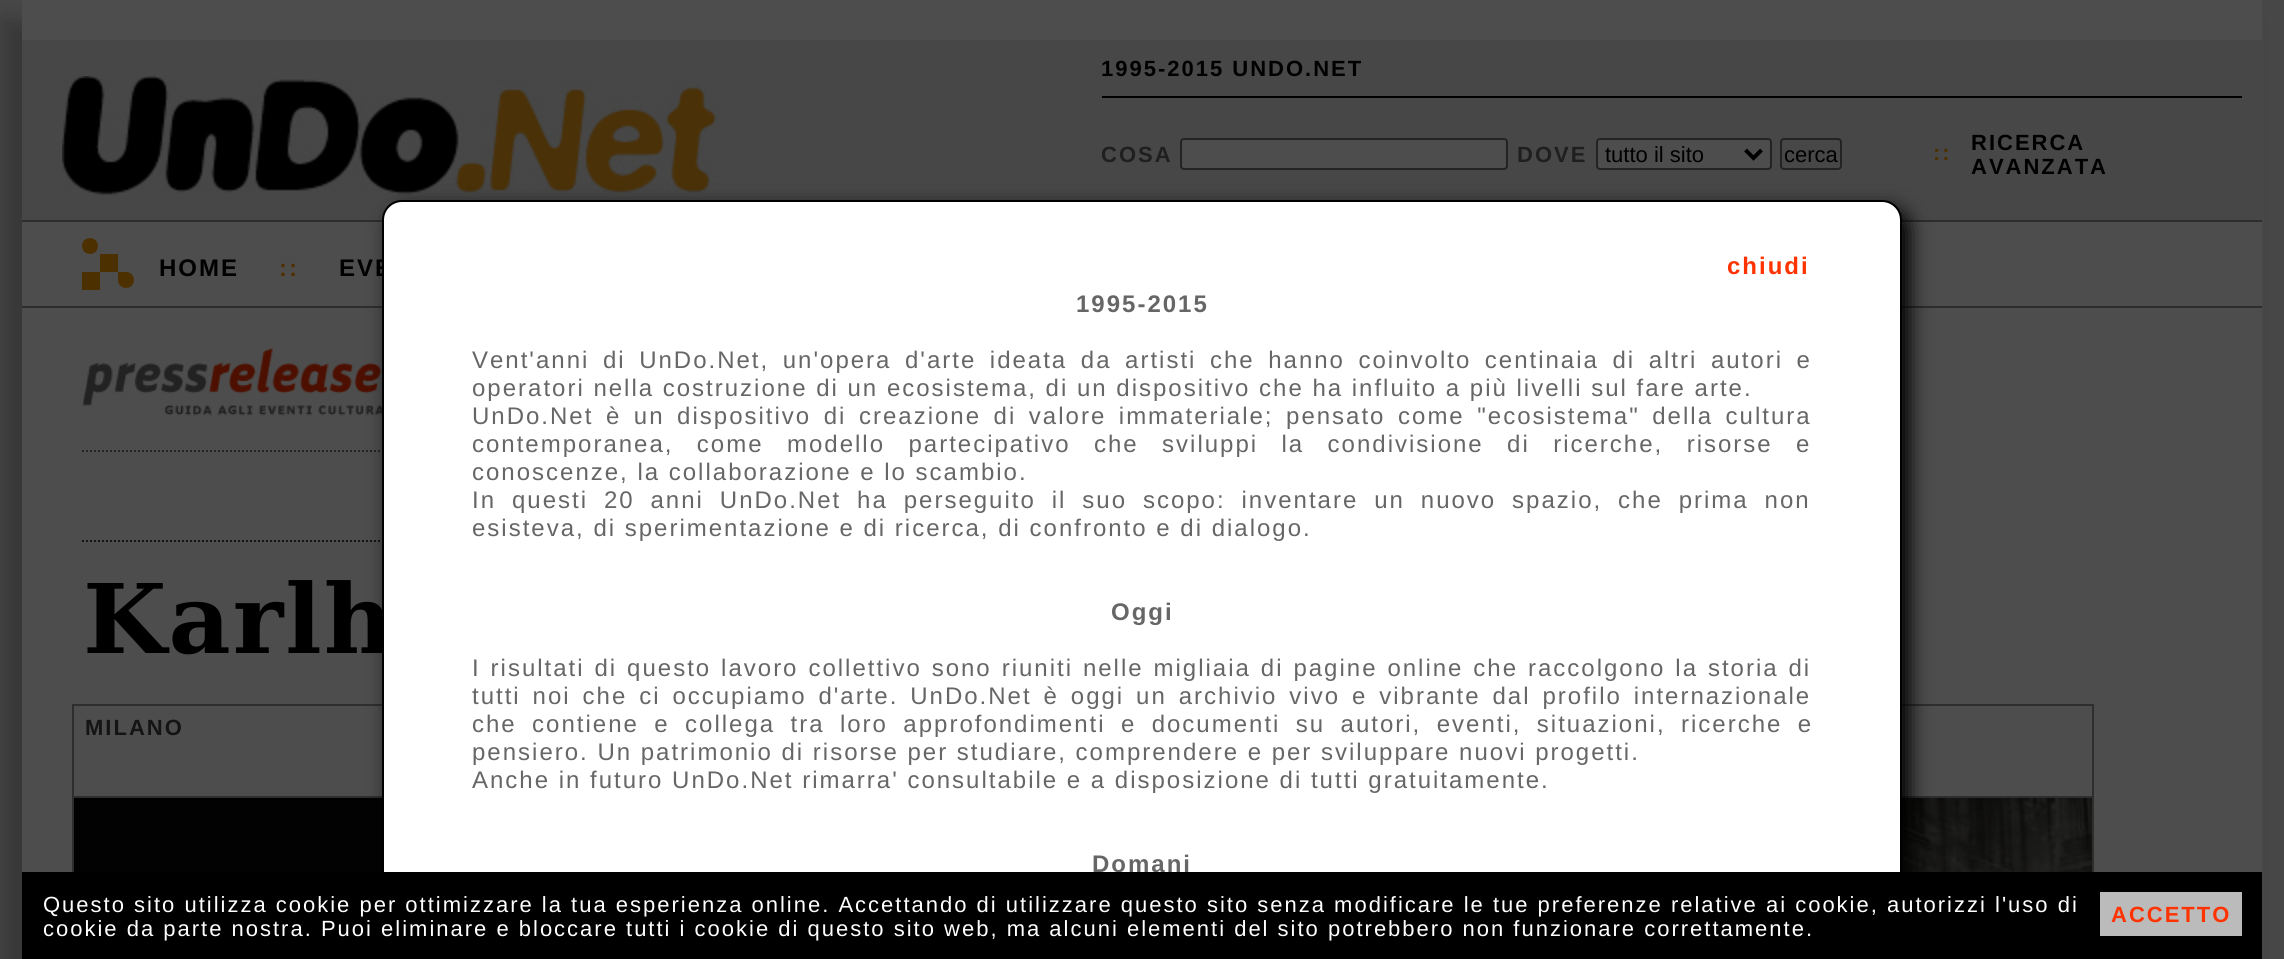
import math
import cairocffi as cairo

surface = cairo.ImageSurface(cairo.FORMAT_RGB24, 2284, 959)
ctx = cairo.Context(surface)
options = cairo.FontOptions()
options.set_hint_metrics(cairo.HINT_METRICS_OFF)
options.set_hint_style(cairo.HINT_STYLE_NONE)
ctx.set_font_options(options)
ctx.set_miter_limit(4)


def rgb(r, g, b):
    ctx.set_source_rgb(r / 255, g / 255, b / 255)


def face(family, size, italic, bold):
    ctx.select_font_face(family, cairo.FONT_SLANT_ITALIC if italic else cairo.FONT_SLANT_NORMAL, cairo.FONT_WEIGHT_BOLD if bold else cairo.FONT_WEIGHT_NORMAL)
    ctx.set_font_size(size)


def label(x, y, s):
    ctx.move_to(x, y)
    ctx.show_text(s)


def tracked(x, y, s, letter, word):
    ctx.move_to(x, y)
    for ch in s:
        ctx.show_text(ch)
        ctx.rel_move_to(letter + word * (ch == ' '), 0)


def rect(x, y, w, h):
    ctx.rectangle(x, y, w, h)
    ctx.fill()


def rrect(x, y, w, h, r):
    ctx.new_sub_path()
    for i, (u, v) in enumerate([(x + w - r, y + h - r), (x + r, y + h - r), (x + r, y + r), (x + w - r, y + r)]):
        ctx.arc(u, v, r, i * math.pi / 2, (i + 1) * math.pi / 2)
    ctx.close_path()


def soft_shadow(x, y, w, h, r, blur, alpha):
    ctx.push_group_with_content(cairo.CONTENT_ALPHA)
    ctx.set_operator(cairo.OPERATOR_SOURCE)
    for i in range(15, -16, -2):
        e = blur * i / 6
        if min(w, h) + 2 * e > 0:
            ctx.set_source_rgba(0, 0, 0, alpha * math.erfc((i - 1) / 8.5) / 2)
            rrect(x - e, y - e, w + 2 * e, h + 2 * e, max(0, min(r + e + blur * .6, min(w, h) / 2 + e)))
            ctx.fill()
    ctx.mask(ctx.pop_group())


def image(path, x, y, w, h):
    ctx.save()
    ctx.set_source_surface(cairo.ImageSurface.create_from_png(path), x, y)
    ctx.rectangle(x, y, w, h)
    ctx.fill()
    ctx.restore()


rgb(71, 71, 71)
ctx.paint()
rgb(56, 56, 56)
soft_shadow(2, 20, 2240, 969, 0, 10, 1)
rgb(77, 77, 77)
rect(22, 0, 2240, 872)
rgb(71, 71, 71)
rect(22, 40, 2240, 180)
rgb(0, 0, 0)
rect(1102, 96, 1140, 2)
face('Liberation Sans', 22, 0, 1)
tracked(1101, 76, '1995-2015 UNDO.NET', 2, 0)
image('image0.png', 62, 76, 655, 119)
rgb(31, 31, 31)
tracked(1101, 162, 'COSA', 2, 0)
rgb(77, 77, 77)
rrect(1181, 139, 326, 30, 3)
ctx.fill_preserve()
rgb(35, 35, 35)
ctx.stroke()
rgb(31, 31, 31)
tracked(1517, 162, 'DOVE', 2, 0)
rgb(77, 77, 77)
rrect(1597, 139, 174, 30, 3)
ctx.fill_preserve()
rgb(35, 35, 35)
ctx.stroke()
ctx.new_path()
ctx.move_to(1745.5, 150)
ctx.line_to(1753.5, 158)
ctx.line_to(1761.5, 150)
rgb(0, 0, 0)
ctx.set_line_width(4)
ctx.stroke()
face('Liberation Sans', 22, 0, 0)
label(1605, 162, 'tutto il sito')
rrect(1781, 139, 60, 30, 3)
rgb(35, 35, 35)
ctx.set_line_width(2)
ctx.stroke()
rgb(0, 0, 0)
label(1784, 162, 'cerca')
face('Liberation Sans', 22, 0, 1)
rgb(77, 48, 0)
tracked(1933, 160, '::', 2, 0)
rgb(0, 0, 0)
tracked(1971, 150, 'RICERCA', 2, 0)
tracked(1971, 174, 'AVANZATA', 2, 0)
rgb(45, 45, 45)
rect(22, 220, 2240, 2)
rect(22, 306, 2240, 2)
rgb(77, 48, 0)
ctx.new_path()
ctx.arc(90, 246, 8, 0, 2 * math.pi)
ctx.fill()
rect(100, 254, 18, 18)
rect(82, 272, 18, 18)
ctx.arc(126, 280, 8, 0, 2 * math.pi)
ctx.fill()
rect(118, 272, 6, 2)
rect(118, 274, 4, 4)
face('Liberation Sans', 24, 0, 1)
rgb(0, 0, 0)
tracked(159, 276, 'HOME', 2, 0)
rgb(77, 48, 0)
tracked(279, 276, '::', 2, 0)
rgb(0, 0, 0)
tracked(339, 276, 'EVE', 2, 0)
ctx.new_path()
ctx.move_to(82, 451)
ctx.line_to(1588, 451)
rgb(36, 36, 36)
ctx.set_dash([2, 2])
ctx.stroke()
image('image1.png', 82, 348, 300, 68)
ctx.new_path()
ctx.move_to(82, 541)
ctx.line_to(1588, 541)
rgb(20, 20, 20)
ctx.stroke()
face('DejaVu Serif', 96, 0, 1)
rgb(0, 0, 0)
tracked(83, 653, 'Karlh', 2, 0)
ctx.rectangle(73, 705, 660, 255)
rgb(46, 46, 46)
ctx.set_dash([])
ctx.stroke()
face('Liberation Sans', 22, 0, 1)
rgb(20, 20, 20)
tracked(85, 735, 'MILANO', 2, 0)
rgb(46, 46, 46)
rect(74, 796, 308, 2)
image('image2.png', 74, 798, 308, 74)
ctx.rectangle(1435, 705, 658, 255)
ctx.stroke()
rect(1902, 796, 190, 2)
image('image3.png', 1902, 798, 190, 74)
rgb(0, 0, 0)
soft_shadow(390, 208, 1520, 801, 20, 10, 1)
rgb(255, 255, 255)
rrect(383, 201, 1518, 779, 19)
ctx.fill_preserve()
rgb(0, 0, 0)
ctx.stroke()
face('Liberation Sans', 24, 0, 1)
rgb(102, 102, 102)
tracked(1092, 872, 'Domani', 2, 0)
rgb(0, 0, 0)
rect(22, 872, 2240, 87)
face('Liberation Sans', 22, 0, 0)
rgb(255, 255, 255)
tracked(43, 912, 'Questo sito utilizza cookie per ottimizzare la tua esperienza online. Accettando di utilizzare questo sito senza modificare le tue preferenze relative ai cookie, autorizzi l\'uso di', 2, 0)
tracked(43, 936, 'cookie da parte nostra. Puoi eliminare e bloccare tutti i cookie di questo sito web, ma alcuni elementi del sito potrebbero non funzionare correttamente.', 2, 0)
rgb(187, 187, 187)
rect(2100, 892, 142, 44)
face('Liberation Sans', 22, 0, 1)
rgb(255, 51, 0)
tracked(2111, 922, 'ACCETTO', 2, 0)
face('Liberation Sans', 24, 0, 1)
tracked(1727, 274, 'chiudi', 2, 0)
rgb(102, 102, 102)
tracked(1076, 312, '1995-2015', 2, 0)
face('Liberation Sans', 24, 0, 0)
tracked(472, 368, 'Vent\'anni di UnDo.Net, un\'opera d\'arte ideata da artisti che hanno coinvolto centinaia di altri autori e', 2, 4.9)
tracked(472, 396, 'operatori nella costruzione di un ecosistema, di un dispositivo che ha influito a più livelli sul fare arte.', 2, 0)
tracked(472, 424, 'UnDo.Net è un dispositivo di creazione di valore immateriale; pensato come "ecosistema" della cultura', 2, 3.9)
tracked(472, 452, 'contemporanea, come modello partecipativo che sviluppi la condivisione di ricerche, risorse e', 2, 14.75)
tracked(472, 480, 'conoscenze, la collaborazione e lo scambio.', 2, 0)
tracked(472, 508, 'In questi 20 anni UnDo.Net ha perseguito il suo scopo: inventare un nuovo spazio, che prima non', 2, 7.25)
tracked(472, 536, 'esisteva, di sperimentazione e di ricerca, di confronto e di dialogo.', 2, 0)
face('Liberation Sans', 24, 0, 1)
tracked(1111, 620, 'Oggi', 2, 0)
face('Liberation Sans', 24, 0, 0)
tracked(472, 676, 'I risultati di questo lavoro collettivo sono riuniti nelle migliaia di pagine online che raccolgono la storia di', 2, 1.25)
tracked(472, 704, 'tutti noi che ci occupiamo d\'arte. UnDo.Net è oggi un archivio vivo e vibrante dal profilo internazionale', 2, 3.25)
tracked(472, 732, 'che contiene e collega tra loro approfondimenti e documenti su autori, eventi, situazioni, ricerche e', 2, 6.75)
tracked(472, 760, 'pensiero. Un patrimonio di risorse per studiare, comprendere e per sviluppare nuovi progetti.', 2, 0)
tracked(472, 788, 'Anche in futuro UnDo.Net rimarra\' consultabile e a disposizione di tutti gratuitamente.', 2, 0)
surface.write_to_png('render.png')
